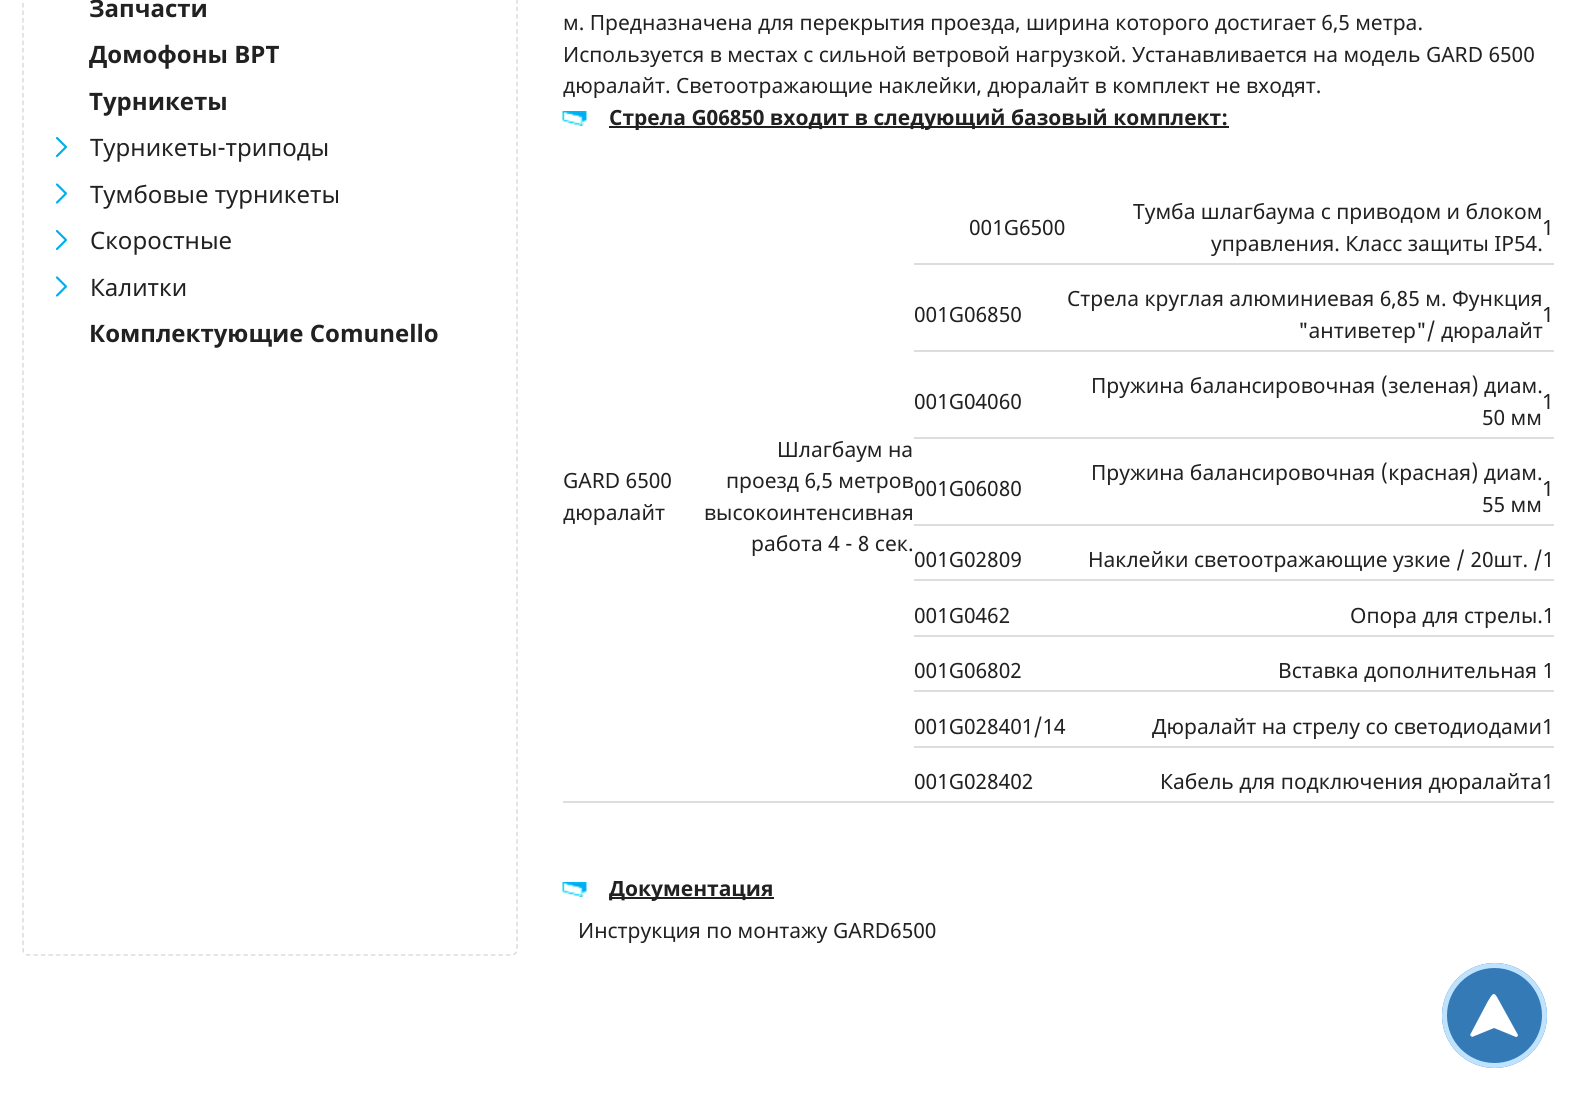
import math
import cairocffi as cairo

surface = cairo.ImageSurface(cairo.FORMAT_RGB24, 1576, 1098)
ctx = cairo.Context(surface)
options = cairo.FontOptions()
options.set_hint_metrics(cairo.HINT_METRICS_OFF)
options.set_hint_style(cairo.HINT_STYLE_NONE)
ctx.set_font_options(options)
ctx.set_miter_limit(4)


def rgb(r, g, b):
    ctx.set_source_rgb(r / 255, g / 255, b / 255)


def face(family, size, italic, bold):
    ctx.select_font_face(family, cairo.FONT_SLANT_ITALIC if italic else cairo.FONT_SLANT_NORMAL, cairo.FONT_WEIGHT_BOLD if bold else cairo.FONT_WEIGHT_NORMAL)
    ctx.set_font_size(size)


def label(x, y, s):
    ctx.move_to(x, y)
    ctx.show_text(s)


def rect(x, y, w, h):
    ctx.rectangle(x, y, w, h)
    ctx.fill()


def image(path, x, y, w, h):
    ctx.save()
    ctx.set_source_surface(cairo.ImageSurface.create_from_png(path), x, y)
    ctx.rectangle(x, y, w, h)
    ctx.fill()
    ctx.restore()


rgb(255, 255, 255)
ctx.paint()
ctx.new_path()
ctx.move_to(28.5, -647)
ctx.line_to(511.5, -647)
ctx.curve_to(514.5, -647, 517, -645, 517, -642)
ctx.line_to(517, 949.5)
ctx.curve_to(517, 952.5, 514.5, 955, 511.5, 955)
ctx.line_to(28.5, 955)
ctx.curve_to(25.5, 955, 23, 952.5, 23, 949.5)
ctx.line_to(23, -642)
ctx.curve_to(23, -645, 25.5, -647, 28.5, -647)
ctx.close_path()
rgb(219, 219, 219)
ctx.set_line_width(1.5)
ctx.set_dash([4.5, 3])
ctx.stroke()
face('Noto Sans', 24, 0, 1)
rgb(33, 33, 33)
label(89, 17, 'Запчасти')
label(89, 63, 'Домофоны BPT')
label(89, 110, 'Турникеты')
ctx.new_path()
ctx.move_to(57, 138)
ctx.line_to(66, 147)
ctx.line_to(57, 156)
rgb(0, 176, 236)
ctx.set_line_width(2.2)
ctx.set_line_cap(cairo.LINE_CAP_ROUND)
ctx.set_line_join(cairo.LINE_JOIN_ROUND)
ctx.set_dash([])
ctx.stroke()
face('Noto Sans', 24, 0, 0)
rgb(33, 33, 33)
label(90, 156, 'Турникеты-триподы')
ctx.new_path()
ctx.move_to(57, 184.5)
ctx.line_to(66, 193.5)
ctx.line_to(57, 202.5)
rgb(0, 176, 236)
ctx.stroke()
rgb(33, 33, 33)
label(90, 203, 'Тумбовые турникеты')
ctx.new_path()
ctx.move_to(57, 231)
ctx.line_to(66, 240)
ctx.line_to(57, 249)
rgb(0, 176, 236)
ctx.stroke()
rgb(33, 33, 33)
label(90, 249, 'Скоростные')
ctx.new_path()
ctx.move_to(57, 277.5)
ctx.line_to(66, 286.5)
ctx.line_to(57, 295.5)
rgb(0, 176, 236)
ctx.stroke()
rgb(33, 33, 33)
label(90, 296, 'Калитки')
face('Noto Sans', 24, 0, 1)
label(89, 342, 'Комплектующие Comunello')
face('Noto Sans', 21, 0, 0)
label(563, 30, 'м. Предназначена для перекрытия проезда, ширина которого достигает 6,5 метра.')
label(563, 62, 'Используется в местах с сильной ветровой нагрузкой. Устанавливается на модель GARD 6500')
label(563, 93, 'дюралайт. Светоотражающие наклейки, дюралайт в комплект не входят.')
image('image0.png', 562, 111, 25, 15)
rect(609, 126, 620, 2)
face('Noto Sans', 21, 0, 1)
label(609, 125, 'Стрела G06850 входит в следующий базовый комплект:')
rgb(221, 221, 221)
rect(914, 263, 640, 2)
face('Noto Sans', 21, 0, 0)
rgb(33, 33, 33)
label(969, 235, '001G6500')
label(1133, 219, 'Тумба шлагбаума с приводом и блоком')
label(1211, 251, 'управления. Класс защиты IP54.')
label(1542, 235, '1')
rgb(221, 221, 221)
rect(563, 801, 991, 2)
rgb(33, 33, 33)
label(563, 488, 'GARD 6500')
label(563, 520, 'дюралайт')
label(777, 457, 'Шлагбаум на')
label(726, 488, 'проезд 6,5 метров')
label(704, 520, 'высокоинтенсивная')
label(751, 551, 'работа 4 - 8 сек.')
rgb(221, 221, 221)
rect(914, 350, 640, 2)
rgb(33, 33, 33)
label(914, 322, '001G06850')
label(1067, 306, 'Стрела круглая алюминиевая 6,85 м. Функция')
label(1298, 338, '"антиветер"/ дюралайт')
label(1542, 322, '1')
rgb(221, 221, 221)
rect(914, 437, 640, 2)
rgb(33, 33, 33)
label(914, 409, '001G04060')
label(1091, 393, 'Пружина балансировочная (зеленая) диам.')
label(1482, 425, '50 мм')
label(1542, 409, '1')
rgb(221, 221, 221)
rect(914, 524, 640, 2)
rgb(33, 33, 33)
label(914, 496, '001G06080')
label(1091, 480, 'Пружина балансировочная (красная) диам.')
label(1482, 512, '55 мм')
label(1542, 496, '1')
rgb(221, 221, 221)
rect(914, 579, 640, 2)
rgb(33, 33, 33)
label(914, 567, '001G02809')
label(1088, 567, 'Наклейки светоотражающие узкие / 20шт. /1')
rgb(221, 221, 221)
rect(914, 635, 640, 2)
rgb(33, 33, 33)
label(914, 623, '001G0462')
label(1350, 623, 'Опора для стрелы.1')
rgb(221, 221, 221)
rect(914, 690, 640, 2)
rgb(33, 33, 33)
label(914, 678, '001G06802')
label(1278, 678, 'Вставка дополнительная 1')
rgb(221, 221, 221)
rect(914, 746, 640, 2)
rgb(33, 33, 33)
label(914, 734, '001G028401/14')
label(1152, 734, 'Дюралайт на стрелу со светодиодами1')
label(914, 789, '001G028402')
label(1160, 789, 'Кабель для подключения дюралайта1')
image('image0.png', 562, 882, 25, 15)
rect(609, 897, 165, 2)
face('Noto Sans', 21, 0, 1)
label(609, 896, 'Документация')
face('Noto Sans', 21, 0, 0)
label(578, 938, 'Инструкция по монтажу GARD6500')
rgb(51, 122, 183)
ctx.new_path()
ctx.arc(1494.5, 1015.5, 52.5, 0, 2 * math.pi)
ctx.fill()
rgb(255, 255, 255)
ctx.new_path()
ctx.move_to(1518, 1035)
ctx.curve_to(1518, 1036, 1517, 1037, 1516, 1037)
ctx.line_to(1494, 1028)
ctx.line_to(1472, 1037)
ctx.line_to(1471, 1036)
ctx.line_to(1470, 1035)
ctx.line_to(1488, 1001)
ctx.curve_to(1491, 997, 1493, 990, 1497, 997)
ctx.close_path()
ctx.fill()
ctx.arc(1494.5, 1015.5, 50, 0, 2 * math.pi)
rgb(191, 226, 255)
ctx.set_line_width(5)
ctx.set_line_cap(cairo.LINE_CAP_BUTT)
ctx.set_line_join(cairo.LINE_JOIN_MITER)
ctx.stroke()
surface.write_to_png('render.png')
